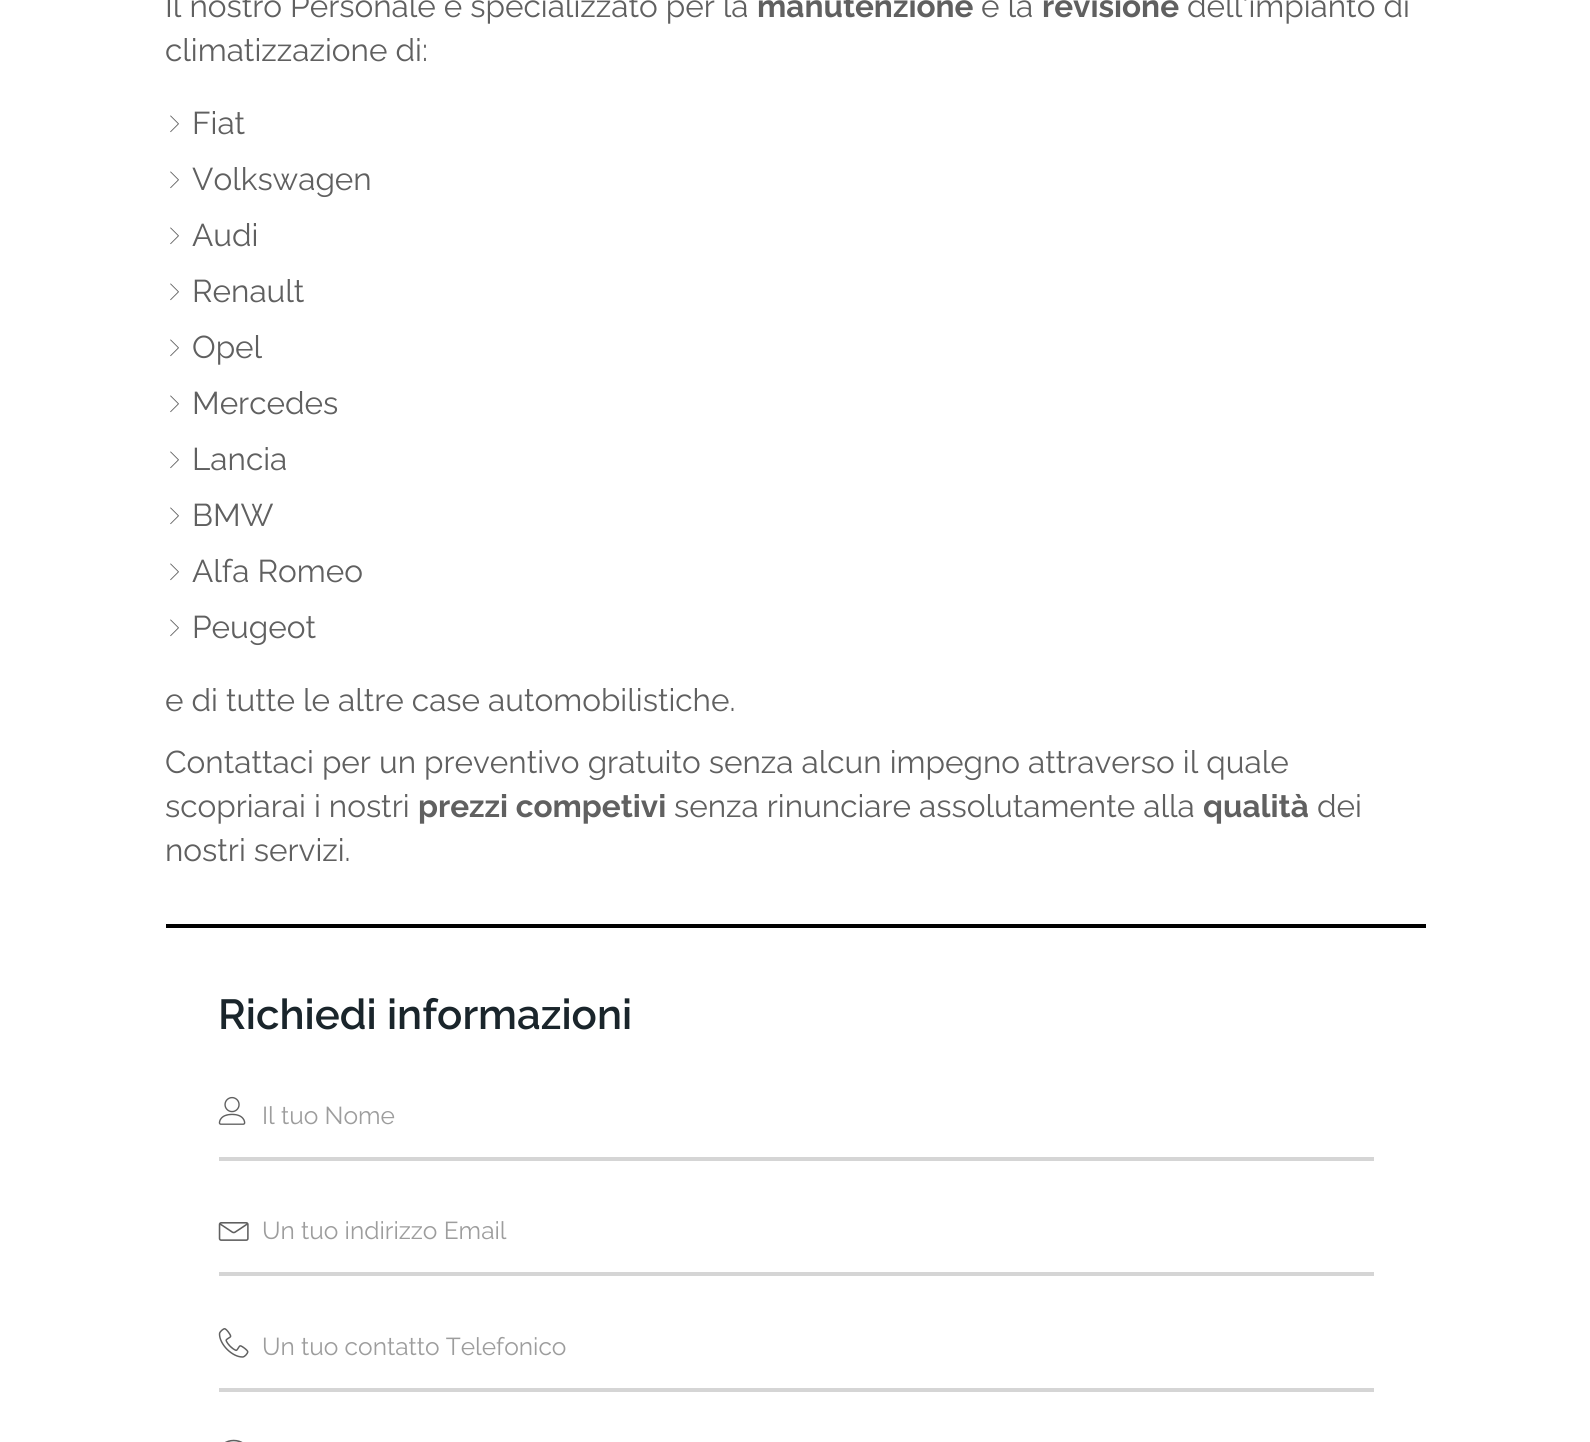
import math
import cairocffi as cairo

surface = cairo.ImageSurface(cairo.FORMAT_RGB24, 1590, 1442)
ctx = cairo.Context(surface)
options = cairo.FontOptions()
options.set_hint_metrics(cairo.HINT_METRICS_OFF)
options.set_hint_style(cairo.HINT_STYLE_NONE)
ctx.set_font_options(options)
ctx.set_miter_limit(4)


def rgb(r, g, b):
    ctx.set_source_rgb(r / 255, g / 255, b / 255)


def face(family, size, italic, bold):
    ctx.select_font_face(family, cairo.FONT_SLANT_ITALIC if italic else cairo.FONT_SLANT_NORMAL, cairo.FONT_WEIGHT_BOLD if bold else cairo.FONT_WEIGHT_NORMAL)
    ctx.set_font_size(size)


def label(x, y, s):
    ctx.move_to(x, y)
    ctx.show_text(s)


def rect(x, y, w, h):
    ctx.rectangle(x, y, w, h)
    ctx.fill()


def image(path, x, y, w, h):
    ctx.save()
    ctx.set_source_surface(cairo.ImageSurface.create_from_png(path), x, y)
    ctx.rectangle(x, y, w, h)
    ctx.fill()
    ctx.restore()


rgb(255, 255, 255)
ctx.paint()
face('Raleway', 31.5, 0, 0)
rgb(96, 96, 96)
label(165, 17, 'Il nostro Personale è specializzato per la')
face('Raleway', 31.5, 0, 1)
label(757, 17, 'manutenzione')
face('Raleway', 31.5, 0, 0)
label(981, 17, 'e la')
face('Raleway', 31.5, 0, 1)
label(1042, 17, 'revisione')
face('Raleway', 31.5, 0, 0)
label(1187, 17, 'dell\'impianto di')
label(165, 61, 'climatizzazione di:')
image('image0.png', 170, 115, 9, 18)
label(192, 134, 'Fiat')
image('image0.png', 170, 171, 9, 18)
label(192, 190, 'Volkswagen')
image('image0.png', 170, 227, 9, 18)
label(192, 246, 'Audi')
image('image0.png', 170, 283, 9, 18)
label(192, 302, 'Renault')
image('image0.png', 170, 339, 9, 18)
label(192, 358, 'Opel')
image('image0.png', 170, 395, 9, 18)
label(192, 414, 'Mercedes')
image('image0.png', 170, 451, 9, 18)
label(192, 470, 'Lancia')
image('image0.png', 170, 507, 9, 18)
label(192, 526, 'BMW')
image('image0.png', 170, 563, 9, 18)
label(192, 582, 'Alfa Romeo')
image('image0.png', 170, 619, 9, 18)
label(192, 638, 'Peugeot')
label(165, 711, 'e di tutte le altre case automobilistiche.')
label(165, 773, 'Contattaci per un preventivo gratuito senza alcun impegno attraverso il quale')
label(165, 817, 'scopriarai i nostri')
face('Raleway', 31.5, 0, 1)
label(418, 817, 'prezzi competivi')
face('Raleway', 31.5, 0, 0)
label(674, 817, 'senza rinunciare assolutamente alla')
face('Raleway', 31.5, 0, 1)
label(1203, 817, 'qualità')
face('Raleway', 31.5, 0, 0)
label(1317, 817, 'dei')
label(165, 861, 'nostri servizi.')
rgb(0, 0, 0)
rect(166, 924, 1260, 4)
face('Raleway SemiBold', 42, 0, 0)
rgb(26, 37, 43)
label(218, 1029, 'Richiedi informazioni')
image('image1.png', 218, 1096, 28, 29)
rgb(213, 213, 213)
rect(219, 1157, 1155, 4)
face('Raleway', 24.5, 0, 0)
rgb(157, 157, 157)
label(262, 1124, 'Il tuo Nome')
image('image2.png', 218, 1222, 31, 19)
rgb(213, 213, 213)
rect(219, 1272, 1155, 4)
rgb(157, 157, 157)
label(262, 1239, 'Un tuo indirizzo Email')
image('image3.png', 218, 1328, 31, 30)
rgb(213, 213, 213)
rect(219, 1388, 1155, 4)
rgb(157, 157, 157)
label(262, 1355, 'Un tuo contatto Telefonico')
image('image4.png', 225, 1439, 18, 3)
surface.write_to_png('render.png')
